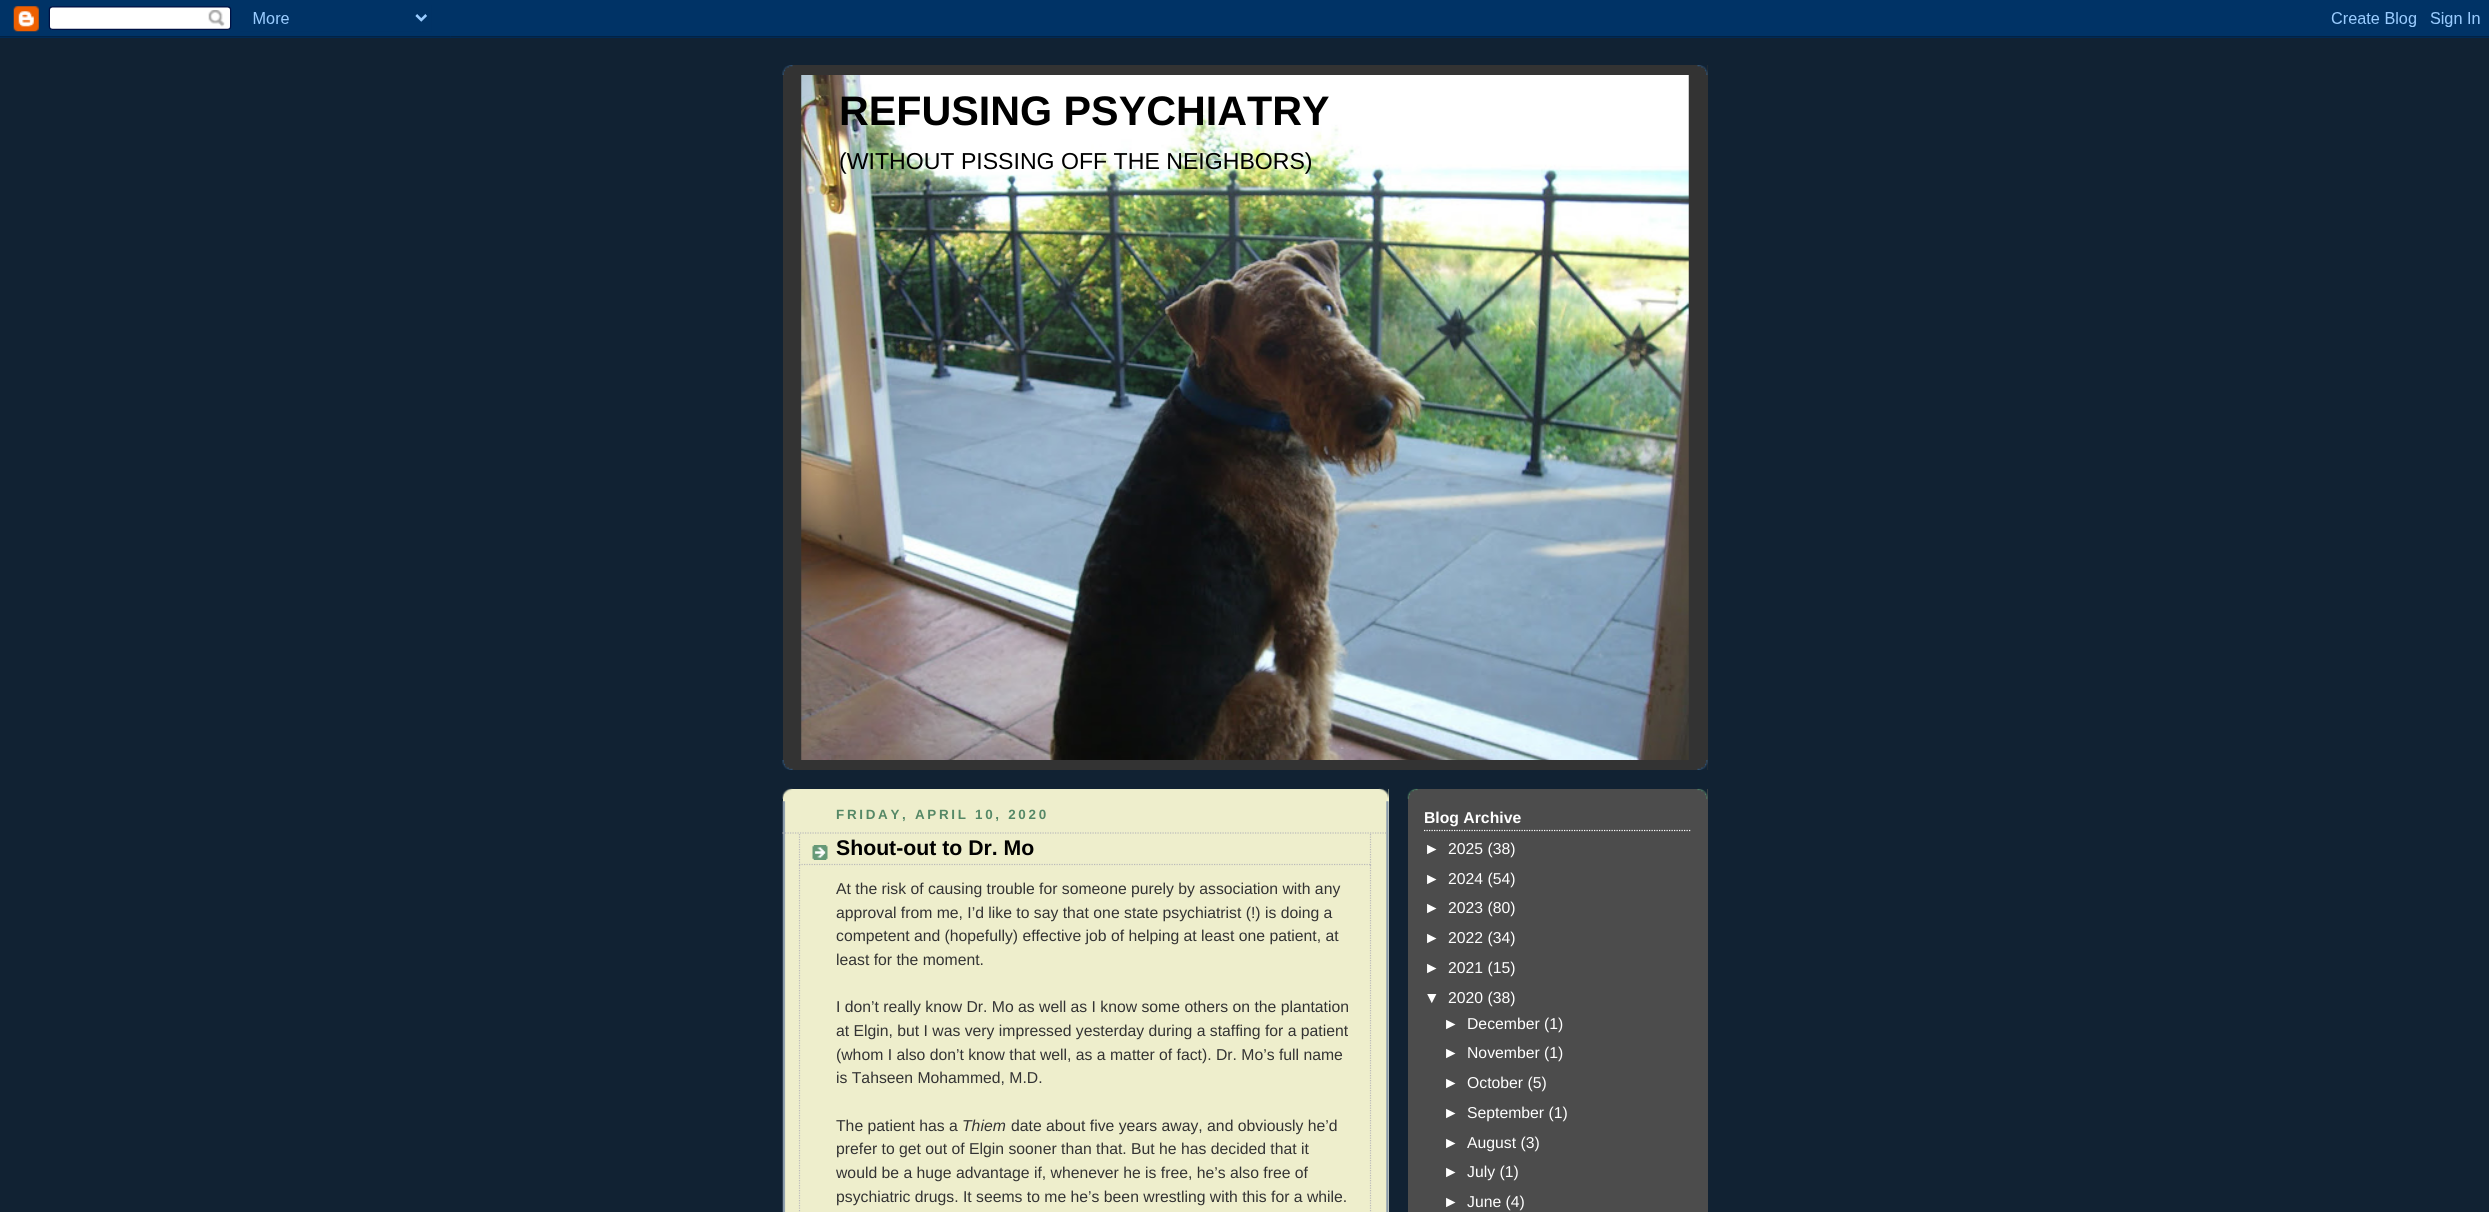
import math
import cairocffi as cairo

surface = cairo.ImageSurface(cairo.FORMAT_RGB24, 2489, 1212)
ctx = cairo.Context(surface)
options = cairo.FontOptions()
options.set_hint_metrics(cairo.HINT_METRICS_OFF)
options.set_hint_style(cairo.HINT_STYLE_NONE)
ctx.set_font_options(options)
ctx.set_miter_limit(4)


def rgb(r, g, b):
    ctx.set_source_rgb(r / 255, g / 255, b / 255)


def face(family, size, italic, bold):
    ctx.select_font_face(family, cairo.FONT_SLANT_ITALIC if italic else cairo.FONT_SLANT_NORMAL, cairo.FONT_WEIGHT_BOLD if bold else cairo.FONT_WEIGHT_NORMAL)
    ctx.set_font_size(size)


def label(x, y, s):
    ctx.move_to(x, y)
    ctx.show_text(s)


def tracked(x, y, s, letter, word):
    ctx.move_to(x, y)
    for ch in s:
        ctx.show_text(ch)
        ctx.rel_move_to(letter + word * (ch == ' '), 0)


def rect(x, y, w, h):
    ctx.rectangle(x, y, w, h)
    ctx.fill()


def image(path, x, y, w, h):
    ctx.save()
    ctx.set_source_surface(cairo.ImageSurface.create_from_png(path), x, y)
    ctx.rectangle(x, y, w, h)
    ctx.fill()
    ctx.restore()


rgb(17, 34, 51)
ctx.paint()
image('image0.png', 0, 0, 2489, 38)
rgb(51, 51, 51)
rect(783, 65, 925, 705)
image('image1.png', 782, 65, 926, 10)
image('image2.png', 782, 760, 926, 10)
image('image3.png', 801, 75, 888, 685)
face('Liberation Sans', 41.25, 0, 1)
rgb(0, 0, 0)
label(839, 125, 'REFUSING PSYCHIATRY')
face('Liberation Sans', 23.1, 0, 0)
label(839, 169, '(WITHOUT PISSING OFF THE NEIGHBORS)')
rgb(238, 238, 204)
rect(783, 789, 606, 423)
image('image4.png', 782, 788, 607, 11)
image('image5.png', 782, 801, 607, 411)
face('Liberation Sans', 13.4, 0, 1)
rgb(85, 136, 102)
tracked(836, 819, 'FRIDAY, APRIL 10, 2020', 2.7, 0)
ctx.new_path()
ctx.move_to(782.5, 833)
ctx.line_to(1387.5, 833)
rgb(187, 187, 187)
ctx.set_line_width(1.2)
ctx.set_dash([1.25, 1.25])
ctx.stroke()
image('image6.png', 812, 845, 16, 15)
ctx.new_path()
ctx.move_to(1370.5, 834)
ctx.line_to(1370.5, 865)
ctx.stroke()
ctx.new_path()
ctx.move_to(799, 864.5)
ctx.line_to(1371, 864.5)
ctx.stroke()
ctx.new_path()
ctx.move_to(799.5, 834)
ctx.line_to(799.5, 865)
ctx.stroke()
face('Liberation Sans', 21.25, 0, 1)
rgb(0, 0, 0)
label(836, 855, 'Shout-out to Dr. Mo')
ctx.new_path()
ctx.move_to(1370.5, 865)
ctx.line_to(1370.5, 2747.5)
rgb(187, 187, 187)
ctx.stroke()
ctx.new_path()
ctx.move_to(799.5, 865)
ctx.line_to(799.5, 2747.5)
ctx.stroke()
face('Liberation Sans', 15.75, 0, 0)
rgb(51, 51, 51)
label(836, 894, 'At the risk of causing trouble for someone purely by association with any')
label(836, 918, 'approval from me, I’d like to say that one state psychiatrist (!) is doing a')
label(836, 941, 'competent and (hopefully) effective job of helping at least one patient, at')
label(836, 965, 'least for the moment.')
label(836, 1012, 'I don’t really know Dr. Mo as well as I know some others on the plantation')
label(836, 1036, 'at Elgin, but I was very impressed yesterday during a staffing for a patient')
label(836, 1060, '(whom I also don’t know that well, as a matter of fact). Dr. Mo’s full name')
label(836, 1083, 'is Tahseen Mohammed, M.D.')
label(836, 1131, 'The patient has a')
face('Liberation Sans', 15.75, 1, 0)
label(962, 1131, 'Thiem')
face('Liberation Sans', 15.75, 0, 0)
label(1011, 1131, 'date about five years away, and obviously he’d')
label(836, 1154, 'prefer to get out of Elgin sooner than that. But he has decided that it')
label(836, 1178, 'would be a huge advantage if, whenever he is free, he’s also free of')
label(836, 1202, 'psychiatric drugs. It seems to me he’s been wrestling with this for a while.')
rgb(76, 76, 76)
rect(1408, 789, 300, 423)
image('image7.png', 1407, 788, 301, 11)
ctx.new_path()
ctx.move_to(1424, 830.5)
ctx.line_to(1691, 830.5)
rgb(255, 255, 255)
ctx.stroke()
face('Liberation Sans', 15.75, 0, 1)
label(1424, 823, 'Blog Archive')
face('Liberation Sans', 15.75, 0, 0)
label(1424, 854, '►')
label(1448, 854, '2025 (38)')
label(1424, 884, '►')
label(1448, 884, '2024 (54)')
label(1424, 913, '►')
label(1448, 913, '2023 (80)')
label(1424, 943, '►')
label(1448, 943, '2022 (34)')
label(1424, 973, '►')
label(1448, 973, '2021 (15)')
label(1424, 1003, '▼')
label(1448, 1003, '2020 (38)')
label(1443, 1029, '►')
label(1467, 1029, 'December (1)')
label(1443, 1058, '►')
label(1467, 1058, 'November (1)')
label(1443, 1088, '►')
label(1467, 1088, 'October (5)')
label(1443, 1118, '►')
label(1467, 1118, 'September (1)')
label(1443, 1148, '►')
label(1467, 1148, 'August (3)')
label(1443, 1177, '►')
label(1467, 1177, 'July (1)')
label(1443, 1207, '►')
label(1467, 1207, 'June (4)')
surface.write_to_png('render.png')
